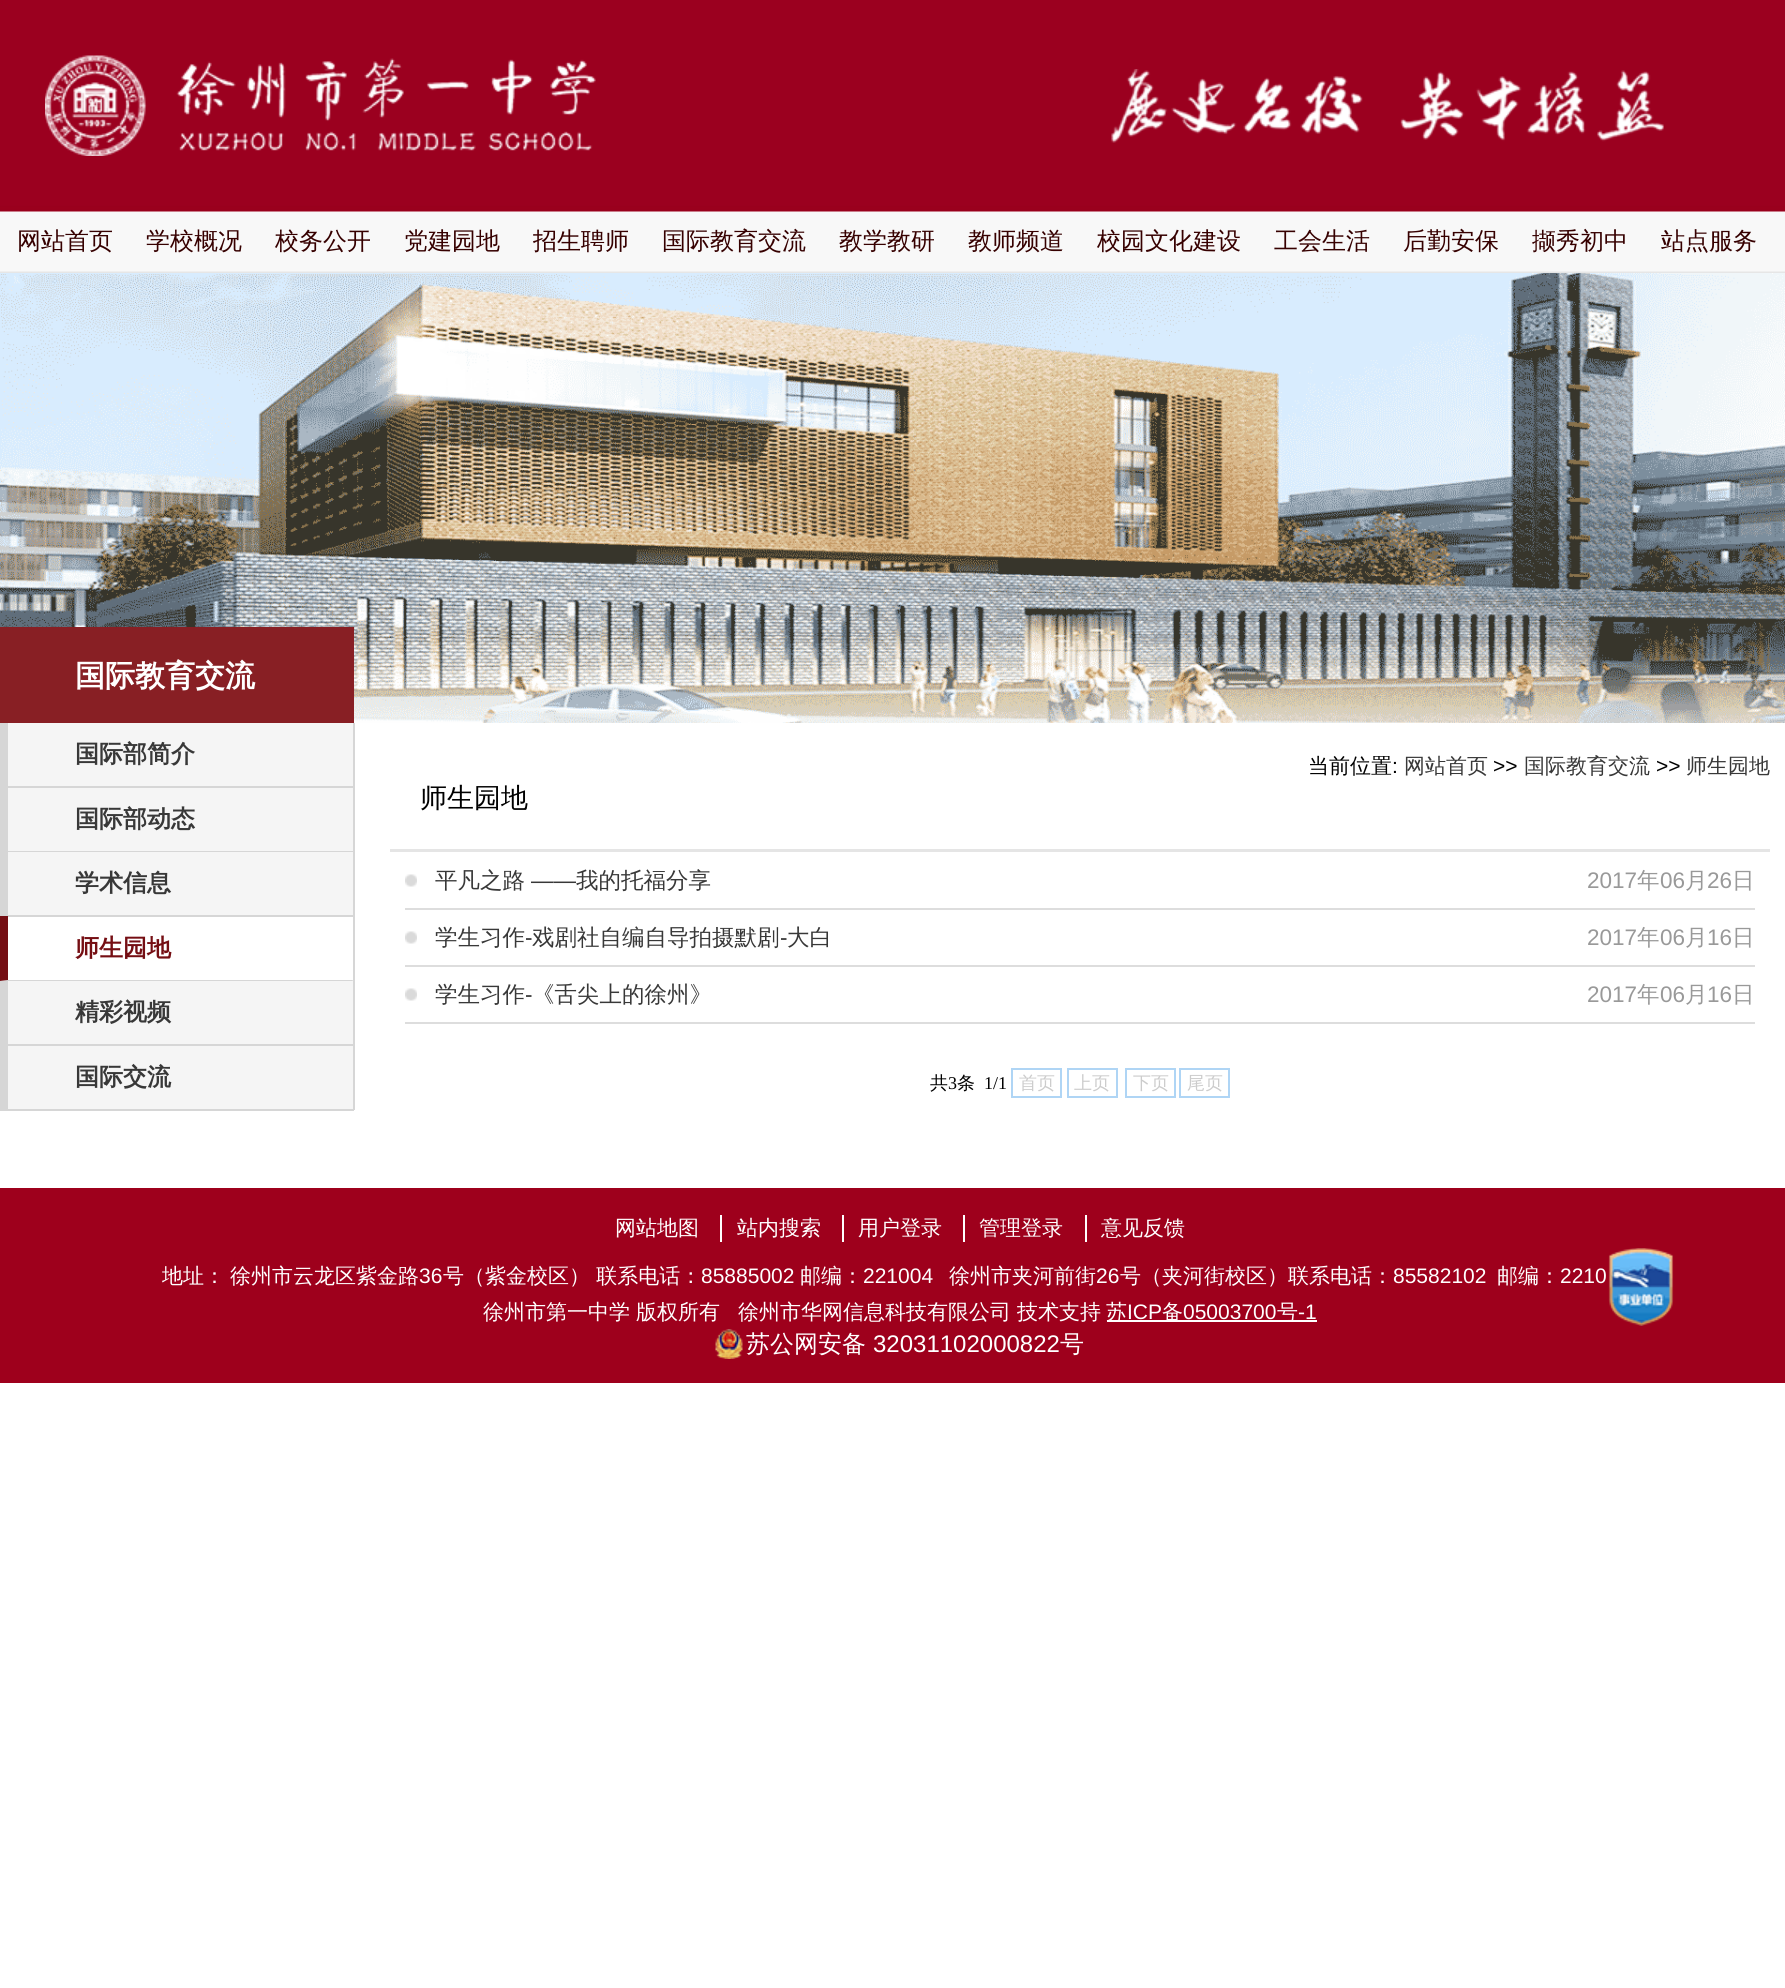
import math
import cairocffi as cairo

surface = cairo.ImageSurface(cairo.FORMAT_RGB24, 1785, 1988)
ctx = cairo.Context(surface)
options = cairo.FontOptions()
options.set_hint_metrics(cairo.HINT_METRICS_OFF)
options.set_hint_style(cairo.HINT_STYLE_NONE)
ctx.set_font_options(options)
ctx.set_miter_limit(4)


def rgb(r, g, b):
    ctx.set_source_rgb(r / 255, g / 255, b / 255)


def face(family, size, italic, bold):
    ctx.select_font_face(family, cairo.FONT_SLANT_ITALIC if italic else cairo.FONT_SLANT_NORMAL, cairo.FONT_WEIGHT_BOLD if bold else cairo.FONT_WEIGHT_NORMAL)
    ctx.set_font_size(size)


def label(x, y, s):
    ctx.move_to(x, y)
    ctx.show_text(s)


def rect(x, y, w, h):
    ctx.rectangle(x, y, w, h)
    ctx.fill()


def image(path, x, y, w, h):
    ctx.save()
    ctx.set_source_surface(cairo.ImageSurface.create_from_png(path), x, y)
    ctx.rectangle(x, y, w, h)
    ctx.fill()
    ctx.restore()


rgb(255, 255, 255)
ctx.paint()
image('image0.png', 0, 0, 1785, 273)
image('image1.png', 45, 55, 551, 101)
image('image2.png', 1111, 69, 553, 74)
face('WenQuanYi Zen Hei Medium', 24, 0, 0)
rgb(54, 0, 0)
label(17, 249, '网站首页')
label(146, 249, '学校概况')
label(275, 249, '校务公开')
label(404, 249, '党建园地')
label(533, 249, '招生聘师')
label(662, 249, '国际教育交流')
label(839, 249, '教学教研')
label(968, 249, '教师频道')
label(1097, 249, '校园文化建设')
label(1274, 249, '工会生活')
label(1403, 249, '后勤安保')
label(1532, 249, '撷秀初中')
label(1661, 249, '站点服务')
image('image3.png', 0, 273, 1785, 450)
rgb(136, 31, 36)
rect(0, 627, 354, 96)
face('WenQuanYi Zen Hei', 30, 0, 1)
rgb(255, 255, 255)
label(75, 686, '国际教育交流')
rgb(245, 245, 245)
rect(8, 723, 345, 63)
rgb(214, 214, 214)
rect(353, 723, 2, 387)
rect(0, 786, 354, 2)
rect(0, 723, 8, 65)
face('WenQuanYi Zen Hei', 24, 0, 1)
rgb(56, 56, 56)
label(75, 762, '国际部简介')
rgb(245, 245, 245)
rect(8, 788, 345, 63)
rgb(214, 214, 214)
rect(0, 851, 354, 1)
rect(0, 788, 8, 64)
rgb(56, 56, 56)
label(75, 827, '国际部动态')
rgb(245, 245, 245)
rect(8, 852, 345, 63)
rgb(214, 214, 214)
rect(0, 915, 354, 2)
rect(0, 852, 8, 65)
rgb(56, 56, 56)
label(75, 891, '学术信息')
rgb(214, 214, 214)
ctx.new_path()
ctx.move_to(354, 981)
ctx.line_to(0, 981)
ctx.line_to(8, 980)
ctx.line_to(352, 980)
ctx.close_path()
ctx.fill()
rgb(117, 14, 19)
ctx.new_path()
ctx.move_to(0, 981)
ctx.line_to(0, 916)
ctx.line_to(8, 916)
ctx.line_to(8, 980)
ctx.close_path()
ctx.fill()
label(75, 956, '师生园地')
rgb(245, 245, 245)
rect(8, 981, 345, 63)
rgb(214, 214, 214)
rect(0, 1044, 354, 2)
rect(0, 981, 8, 65)
rgb(56, 56, 56)
label(75, 1020, '精彩视频')
rgb(245, 245, 245)
rect(8, 1046, 345, 63)
rgb(214, 214, 214)
rect(0, 1109, 354, 2)
rect(0, 1046, 8, 64)
rgb(56, 56, 56)
label(75, 1085, '国际交流')
face('WenQuanYi Zen Hei Medium', 21, 0, 0)
rgb(0, 0, 0)
label(1308, 773, '当前位置')
face('Liberation Sans', 21, 0, 0)
label(1392, 773, ':')
face('WenQuanYi Zen Hei Medium', 21, 0, 0)
rgb(56, 56, 56)
label(1404, 773, '网站首页')
face('Liberation Sans', 21, 0, 0)
rgb(0, 0, 0)
label(1493, 773, '>>')
face('WenQuanYi Zen Hei Medium', 21, 0, 0)
rgb(56, 56, 56)
label(1524, 773, '国际教育交流')
face('Liberation Sans', 21, 0, 0)
rgb(0, 0, 0)
label(1656, 773, '>>')
face('WenQuanYi Zen Hei Medium', 21, 0, 0)
rgb(56, 56, 56)
label(1686, 773, '师生园地')
rgb(229, 229, 229)
rect(390, 849, 1380, 3)
face('WenQuanYi Zen Hei Medium', 27, 0, 0)
rgb(0, 0, 0)
label(420, 807, '师生园地')
image('image4.png', 405, 874, 12, 13)
rgb(221, 221, 221)
rect(405, 908, 1350, 2)
face('WenQuanYi Zen Hei Medium', 22.5, 0, 0)
rgb(56, 56, 56)
label(435, 888, '平凡之路')
face('Liberation Sans', 22.5, 0, 0)
label(531, 888, '——')
face('WenQuanYi Zen Hei Medium', 22.5, 0, 0)
label(576, 888, '我的托福分享')
face('Liberation Sans', 22.5, 0, 0)
rgb(153, 153, 153)
label(1587, 888, '2017')
face('WenQuanYi Zen Hei Medium', 22.5, 0, 0)
label(1637, 888, '年')
face('Liberation Sans', 22.5, 0, 0)
label(1660, 888, '06')
face('WenQuanYi Zen Hei Medium', 22.5, 0, 0)
label(1685, 888, '月')
face('Liberation Sans', 22.5, 0, 0)
label(1707, 888, '26')
face('WenQuanYi Zen Hei Medium', 22.5, 0, 0)
label(1732, 888, '日')
image('image4.png', 405, 931, 12, 13)
rgb(221, 221, 221)
rect(405, 965, 1350, 2)
rgb(56, 56, 56)
label(435, 945, '学生习作')
face('Liberation Sans', 22.5, 0, 0)
label(525, 945, '-')
face('WenQuanYi Zen Hei Medium', 22.5, 0, 0)
label(532, 945, '戏剧社自编自导拍摄默剧')
face('Liberation Sans', 22.5, 0, 0)
label(780, 945, '-')
face('WenQuanYi Zen Hei Medium', 22.5, 0, 0)
label(787, 945, '大白')
face('Liberation Sans', 22.5, 0, 0)
rgb(153, 153, 153)
label(1587, 945, '2017')
face('WenQuanYi Zen Hei Medium', 22.5, 0, 0)
label(1637, 945, '年')
face('Liberation Sans', 22.5, 0, 0)
label(1660, 945, '06')
face('WenQuanYi Zen Hei Medium', 22.5, 0, 0)
label(1685, 945, '月')
face('Liberation Sans', 22.5, 0, 0)
label(1707, 945, '16')
face('WenQuanYi Zen Hei Medium', 22.5, 0, 0)
label(1732, 945, '日')
image('image4.png', 405, 988, 12, 13)
rgb(221, 221, 221)
rect(405, 1022, 1350, 2)
rgb(56, 56, 56)
label(435, 1002, '学生习作')
face('Liberation Sans', 22.5, 0, 0)
label(525, 1002, '-')
face('WenQuanYi Zen Hei Medium', 22.5, 0, 0)
label(532, 1002, '《舌尖上的徐州》')
face('Liberation Sans', 22.5, 0, 0)
rgb(153, 153, 153)
label(1587, 1002, '2017')
face('WenQuanYi Zen Hei Medium', 22.5, 0, 0)
label(1637, 1002, '年')
face('Liberation Sans', 22.5, 0, 0)
label(1660, 1002, '06')
face('WenQuanYi Zen Hei Medium', 22.5, 0, 0)
label(1685, 1002, '月')
face('Liberation Sans', 22.5, 0, 0)
label(1707, 1002, '16')
face('WenQuanYi Zen Hei Medium', 22.5, 0, 0)
label(1732, 1002, '日')
face('WenQuanYi Zen Hei Medium', 18, 0, 0)
rgb(0, 0, 0)
label(930, 1089, '共')
face('Liberation Serif', 18, 0, 0)
label(948, 1089, '3')
face('WenQuanYi Zen Hei Medium', 18, 0, 0)
label(957, 1089, '条')
face('Liberation Serif', 18, 0, 0)
label(984, 1089, '1/1')
ctx.rectangle(1012, 1069, 49, 28)
rgb(175, 213, 245)
ctx.stroke()
face('WenQuanYi Zen Hei Medium', 18, 0, 0)
rgb(204, 204, 204)
label(1019, 1089, '首页')
ctx.rectangle(1068, 1069, 49, 28)
rgb(175, 213, 245)
ctx.stroke()
rgb(204, 204, 204)
label(1074, 1089, '上页')
ctx.rectangle(1126, 1069, 49, 28)
rgb(175, 213, 245)
ctx.stroke()
rgb(204, 204, 204)
label(1133, 1089, '下页')
ctx.rectangle(1180, 1069, 49, 28)
rgb(175, 213, 245)
ctx.stroke()
rgb(204, 204, 204)
label(1187, 1089, '尾页')
rgb(158, 0, 28)
rect(0, 1188, 1785, 195)
face('WenQuanYi Zen Hei Medium', 21, 0, 0)
rgb(255, 255, 255)
label(615, 1235, '网站地图')
rect(720, 1215, 2, 27)
label(737, 1235, '站内搜索')
rect(842, 1215, 2, 27)
label(858, 1235, '用户登录')
rect(963, 1215, 2, 27)
label(979, 1235, '管理登录')
rect(1085, 1215, 2, 27)
label(1101, 1235, '意见反馈')
label(162, 1283, '地址：')
label(230, 1283, '徐州市云龙区紫金路')
face('Liberation Sans', 21, 0, 0)
label(419, 1283, '36')
face('WenQuanYi Zen Hei Medium', 21, 0, 0)
label(443, 1283, '号（紫金校区） 联系电话：')
face('Liberation Sans', 21, 0, 0)
label(701, 1283, '85885002')
face('WenQuanYi Zen Hei Medium', 21, 0, 0)
label(800, 1283, '邮编：')
face('Liberation Sans', 21, 0, 0)
label(863, 1283, '221004')
face('WenQuanYi Zen Hei Medium', 21, 0, 0)
label(949, 1283, '徐州市夹河前街')
face('Liberation Sans', 21, 0, 0)
label(1096, 1283, '26')
face('WenQuanYi Zen Hei Medium', 21, 0, 0)
label(1120, 1283, '号（夹河街校区）联系电话：')
face('Liberation Sans', 21, 0, 0)
label(1393, 1283, '85582102')
face('WenQuanYi Zen Hei Medium', 21, 0, 0)
label(1497, 1283, '邮编：')
face('Liberation Sans', 21, 0, 0)
label(1560, 1283, '2210')
face('WenQuanYi Zen Hei Medium', 21, 0, 0)
label(483, 1319, '徐州市第一中学')
label(636, 1319, '版权所有')
label(738, 1319, '徐州市华网信息科技有限公司')
label(1017, 1319, '技术支持')
rect(1107, 1320, 210, 2)
label(1106, 1319, '苏')
face('Liberation Sans', 21, 0, 0)
label(1127, 1319, 'ICP')
face('WenQuanYi Zen Hei Medium', 21, 0, 0)
label(1162, 1319, '备')
face('Liberation Sans', 21, 0, 0)
label(1183, 1319, '05003700')
face('WenQuanYi Zen Hei Medium', 21, 0, 0)
label(1277, 1319, '号')
face('Liberation Sans', 21, 0, 0)
label(1298, 1319, '-1')
image('image5.png', 1608, 1248, 66, 78)
image('image6.png', 715, 1329, 28, 30)
face('WenQuanYi Zen Hei Medium', 24, 0, 0)
label(746, 1352, '苏公网安备')
face('Liberation Sans', 24, 0, 0)
label(873, 1352, '32031102000822')
face('WenQuanYi Zen Hei Medium', 24, 0, 0)
label(1060, 1352, '号')
surface.write_to_png('render.png')
